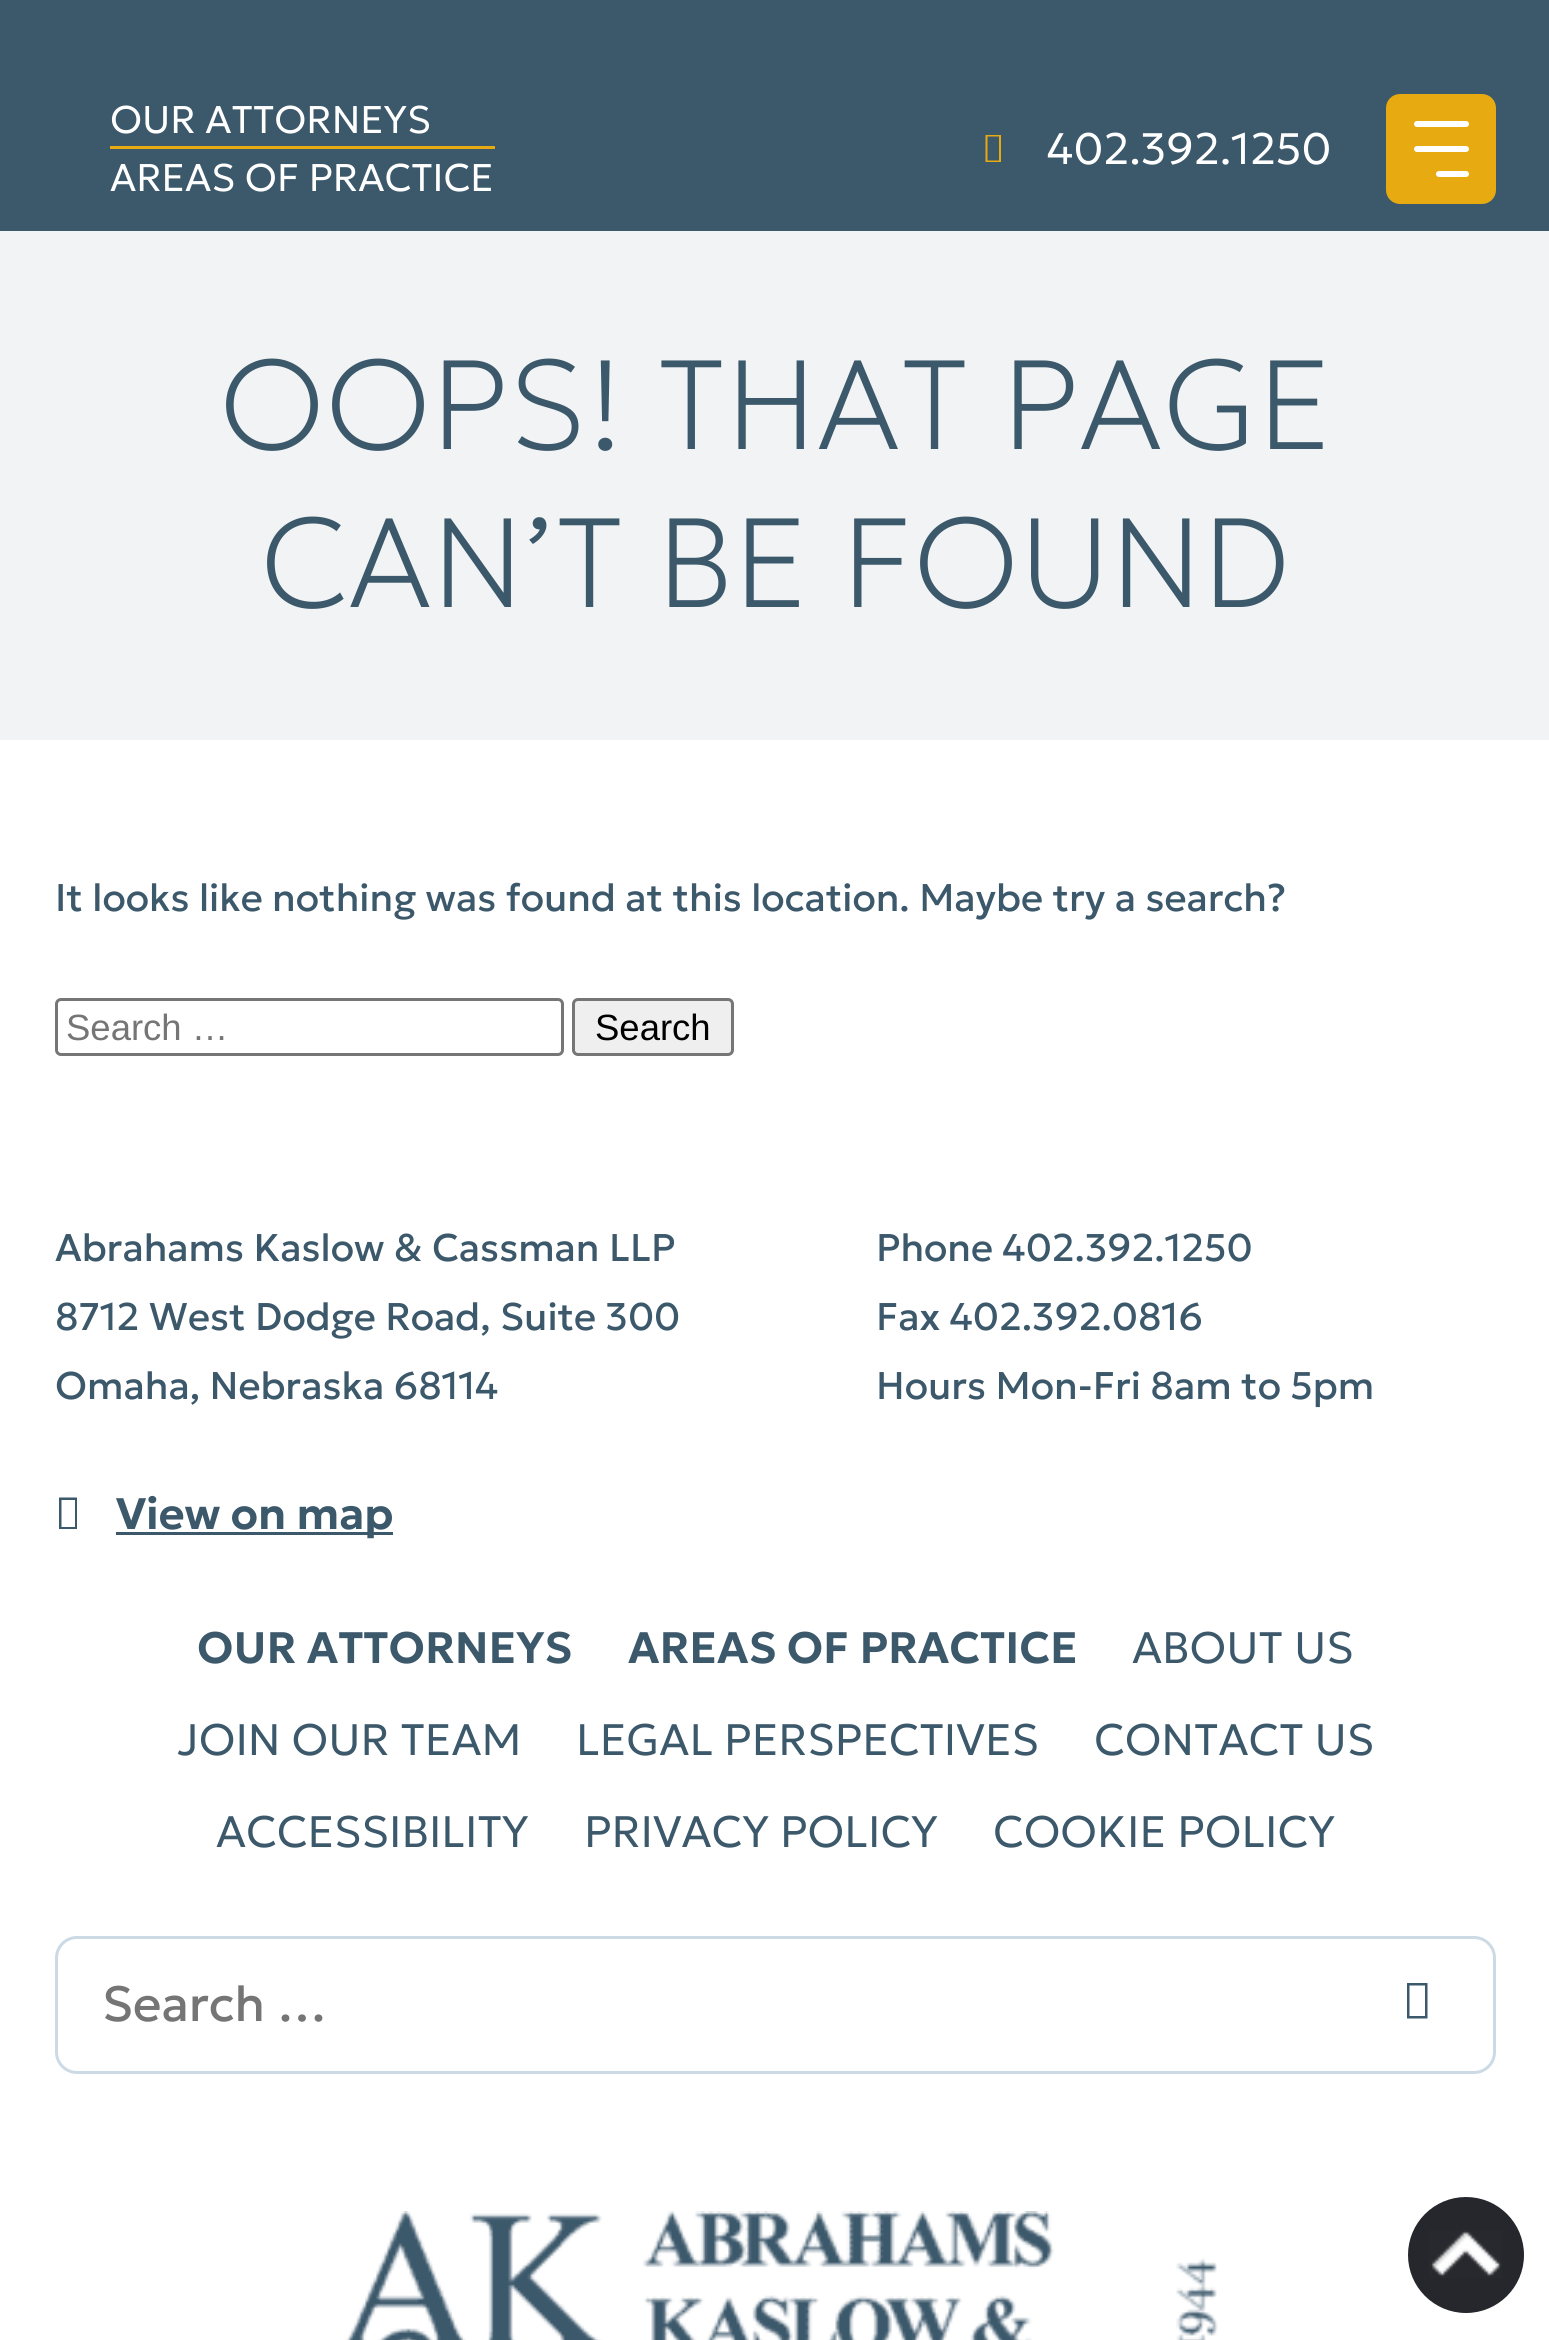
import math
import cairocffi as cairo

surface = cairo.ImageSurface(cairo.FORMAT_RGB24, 1549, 2340)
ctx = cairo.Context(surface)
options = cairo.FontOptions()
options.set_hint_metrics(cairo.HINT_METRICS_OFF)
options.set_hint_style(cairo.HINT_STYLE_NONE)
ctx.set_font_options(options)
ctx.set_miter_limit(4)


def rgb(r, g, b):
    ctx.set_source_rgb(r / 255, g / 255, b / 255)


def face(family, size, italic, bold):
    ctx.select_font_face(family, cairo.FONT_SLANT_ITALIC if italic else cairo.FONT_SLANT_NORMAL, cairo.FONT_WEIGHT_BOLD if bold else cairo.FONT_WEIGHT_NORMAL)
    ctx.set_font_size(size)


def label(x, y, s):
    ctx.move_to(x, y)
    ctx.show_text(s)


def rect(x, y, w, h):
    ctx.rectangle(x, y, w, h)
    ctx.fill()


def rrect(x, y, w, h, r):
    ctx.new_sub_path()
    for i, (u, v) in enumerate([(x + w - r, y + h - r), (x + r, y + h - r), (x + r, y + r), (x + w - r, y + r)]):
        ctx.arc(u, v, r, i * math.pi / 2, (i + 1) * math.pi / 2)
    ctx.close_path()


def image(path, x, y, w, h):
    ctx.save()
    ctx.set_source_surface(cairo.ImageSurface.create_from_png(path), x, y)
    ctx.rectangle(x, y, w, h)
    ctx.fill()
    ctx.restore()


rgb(255, 255, 255)
ctx.paint()
rgb(60, 88, 107)
rect(0, 0, 1549, 231)
rgb(231, 170, 17)
rect(110, 146, 385, 3)
face('Geologica Light', 38.5, 0, 0)
rgb(255, 255, 255)
label(110, 133, 'OUR ATTORNEYS')
label(110, 191, 'AREAS OF PRACTICE')
rgb(231, 170, 17)
ctx.new_path()
ctx.move_to(985.5, 162)
ctx.line_to(985.5, 135)
ctx.line_to(1001, 135)
ctx.line_to(1001, 162)
ctx.close_path()
ctx.move_to(987.5, 160.5)
ctx.line_to(999, 160.5)
ctx.line_to(999, 136.5)
ctx.line_to(987.5, 136.5)
ctx.close_path()
ctx.fill()
face('Geologica Light', 44, 0, 0)
rgb(255, 255, 255)
label(1047, 164, '402.392.1250')
rgb(231, 170, 17)
rrect(1386, 94, 110, 110, 14)
ctx.fill()
rgb(255, 255, 255)
rrect(1414, 121, 55, 6, 3)
ctx.fill()
rrect(1414, 146, 55, 6, 3)
ctx.fill()
rrect(1436, 171, 33, 6, 3)
ctx.fill()
rgb(241, 243, 244)
rect(0, 231, 1549, 509)
face('Geologica Thin', 126.5, 0, 0)
rgb(60, 88, 107)
label(219, 449, 'OOPS! THAT PAGE')
label(260, 607, 'CAN’T BE FOUND')
face('Geologica', 38.5, 0, 0)
label(55, 911, 'It looks like nothing was found at this location. Maybe try a search?')
rrect(56.5, 999.5, 506, 55, 4.5)
rgb(118, 118, 118)
ctx.set_line_width(3)
ctx.stroke()
face('Liberation Sans', 36.5, 0, 0)
rgb(117, 117, 117)
label(66, 1040, 'Search …')
rgb(239, 239, 239)
rrect(573.5, 999.5, 159, 55, 4.5)
ctx.fill_preserve()
rgb(118, 118, 118)
ctx.stroke()
rgb(0, 0, 0)
label(595, 1040, 'Search')
face('Geologica', 38.5, 0, 0)
rgb(60, 88, 107)
label(55, 1261, 'Abrahams Kaslow & Cassman LLP')
label(55, 1330, '8712 West Dodge Road, Suite 300')
label(55, 1399, 'Omaha, Nebraska 68114')
label(876, 1261, 'Phone 402.392.1250')
label(876, 1330, 'Fax 402.392.0816')
label(876, 1399, 'Hours Mon-Fri 8am to 5pm')
ctx.new_path()
ctx.move_to(59, 1529)
ctx.line_to(59, 1497.5)
ctx.line_to(77, 1497.5)
ctx.line_to(77, 1529)
ctx.close_path()
ctx.move_to(61.5, 1527)
ctx.line_to(75, 1527)
ctx.line_to(75, 1500)
ctx.line_to(61.5, 1500)
ctx.close_path()
ctx.fill()
rect(116, 1532, 277, 3)
face('Geologica SemiBold', 44, 0, 0)
label(116, 1529, 'View on map')
label(197, 1663, 'OUR ATTORNEYS')
label(628, 1663, 'AREAS OF PRACTICE')
face('Geologica Light', 44, 0, 0)
label(1132, 1663, 'ABOUT US')
label(177, 1755, 'JOIN OUR TEAM')
label(576, 1755, 'LEGAL PERSPECTIVES')
label(1094, 1755, 'CONTACT US')
label(216, 1847, 'ACCESSIBILITY')
label(584, 1847, 'PRIVACY POLICY')
label(993, 1847, 'COOKIE POLICY')
rrect(56.5, 1937.5, 1438, 135, 20.5)
rgb(203, 218, 228)
ctx.stroke()
face('Geologica', 49.5, 0, 0)
rgb(117, 117, 117)
label(102, 2021, 'Search …')
rgb(60, 88, 107)
ctx.new_path()
ctx.move_to(1407, 2018.5)
ctx.line_to(1407, 1983)
ctx.line_to(1427.5, 1983)
ctx.line_to(1427.5, 2018.5)
ctx.close_path()
ctx.move_to(1409.5, 2016)
ctx.line_to(1425, 2016)
ctx.line_to(1425, 1985.5)
ctx.line_to(1409.5, 1985.5)
ctx.close_path()
ctx.fill()
image('image0.png', 345, 2211, 873, 129)
rgb(37, 39, 44)
ctx.arc(1466, 2255, 58, 0, 2 * math.pi)
ctx.fill()
image('image1.png', 1429, 2230, 73, 48)
surface.write_to_png('render.png')
